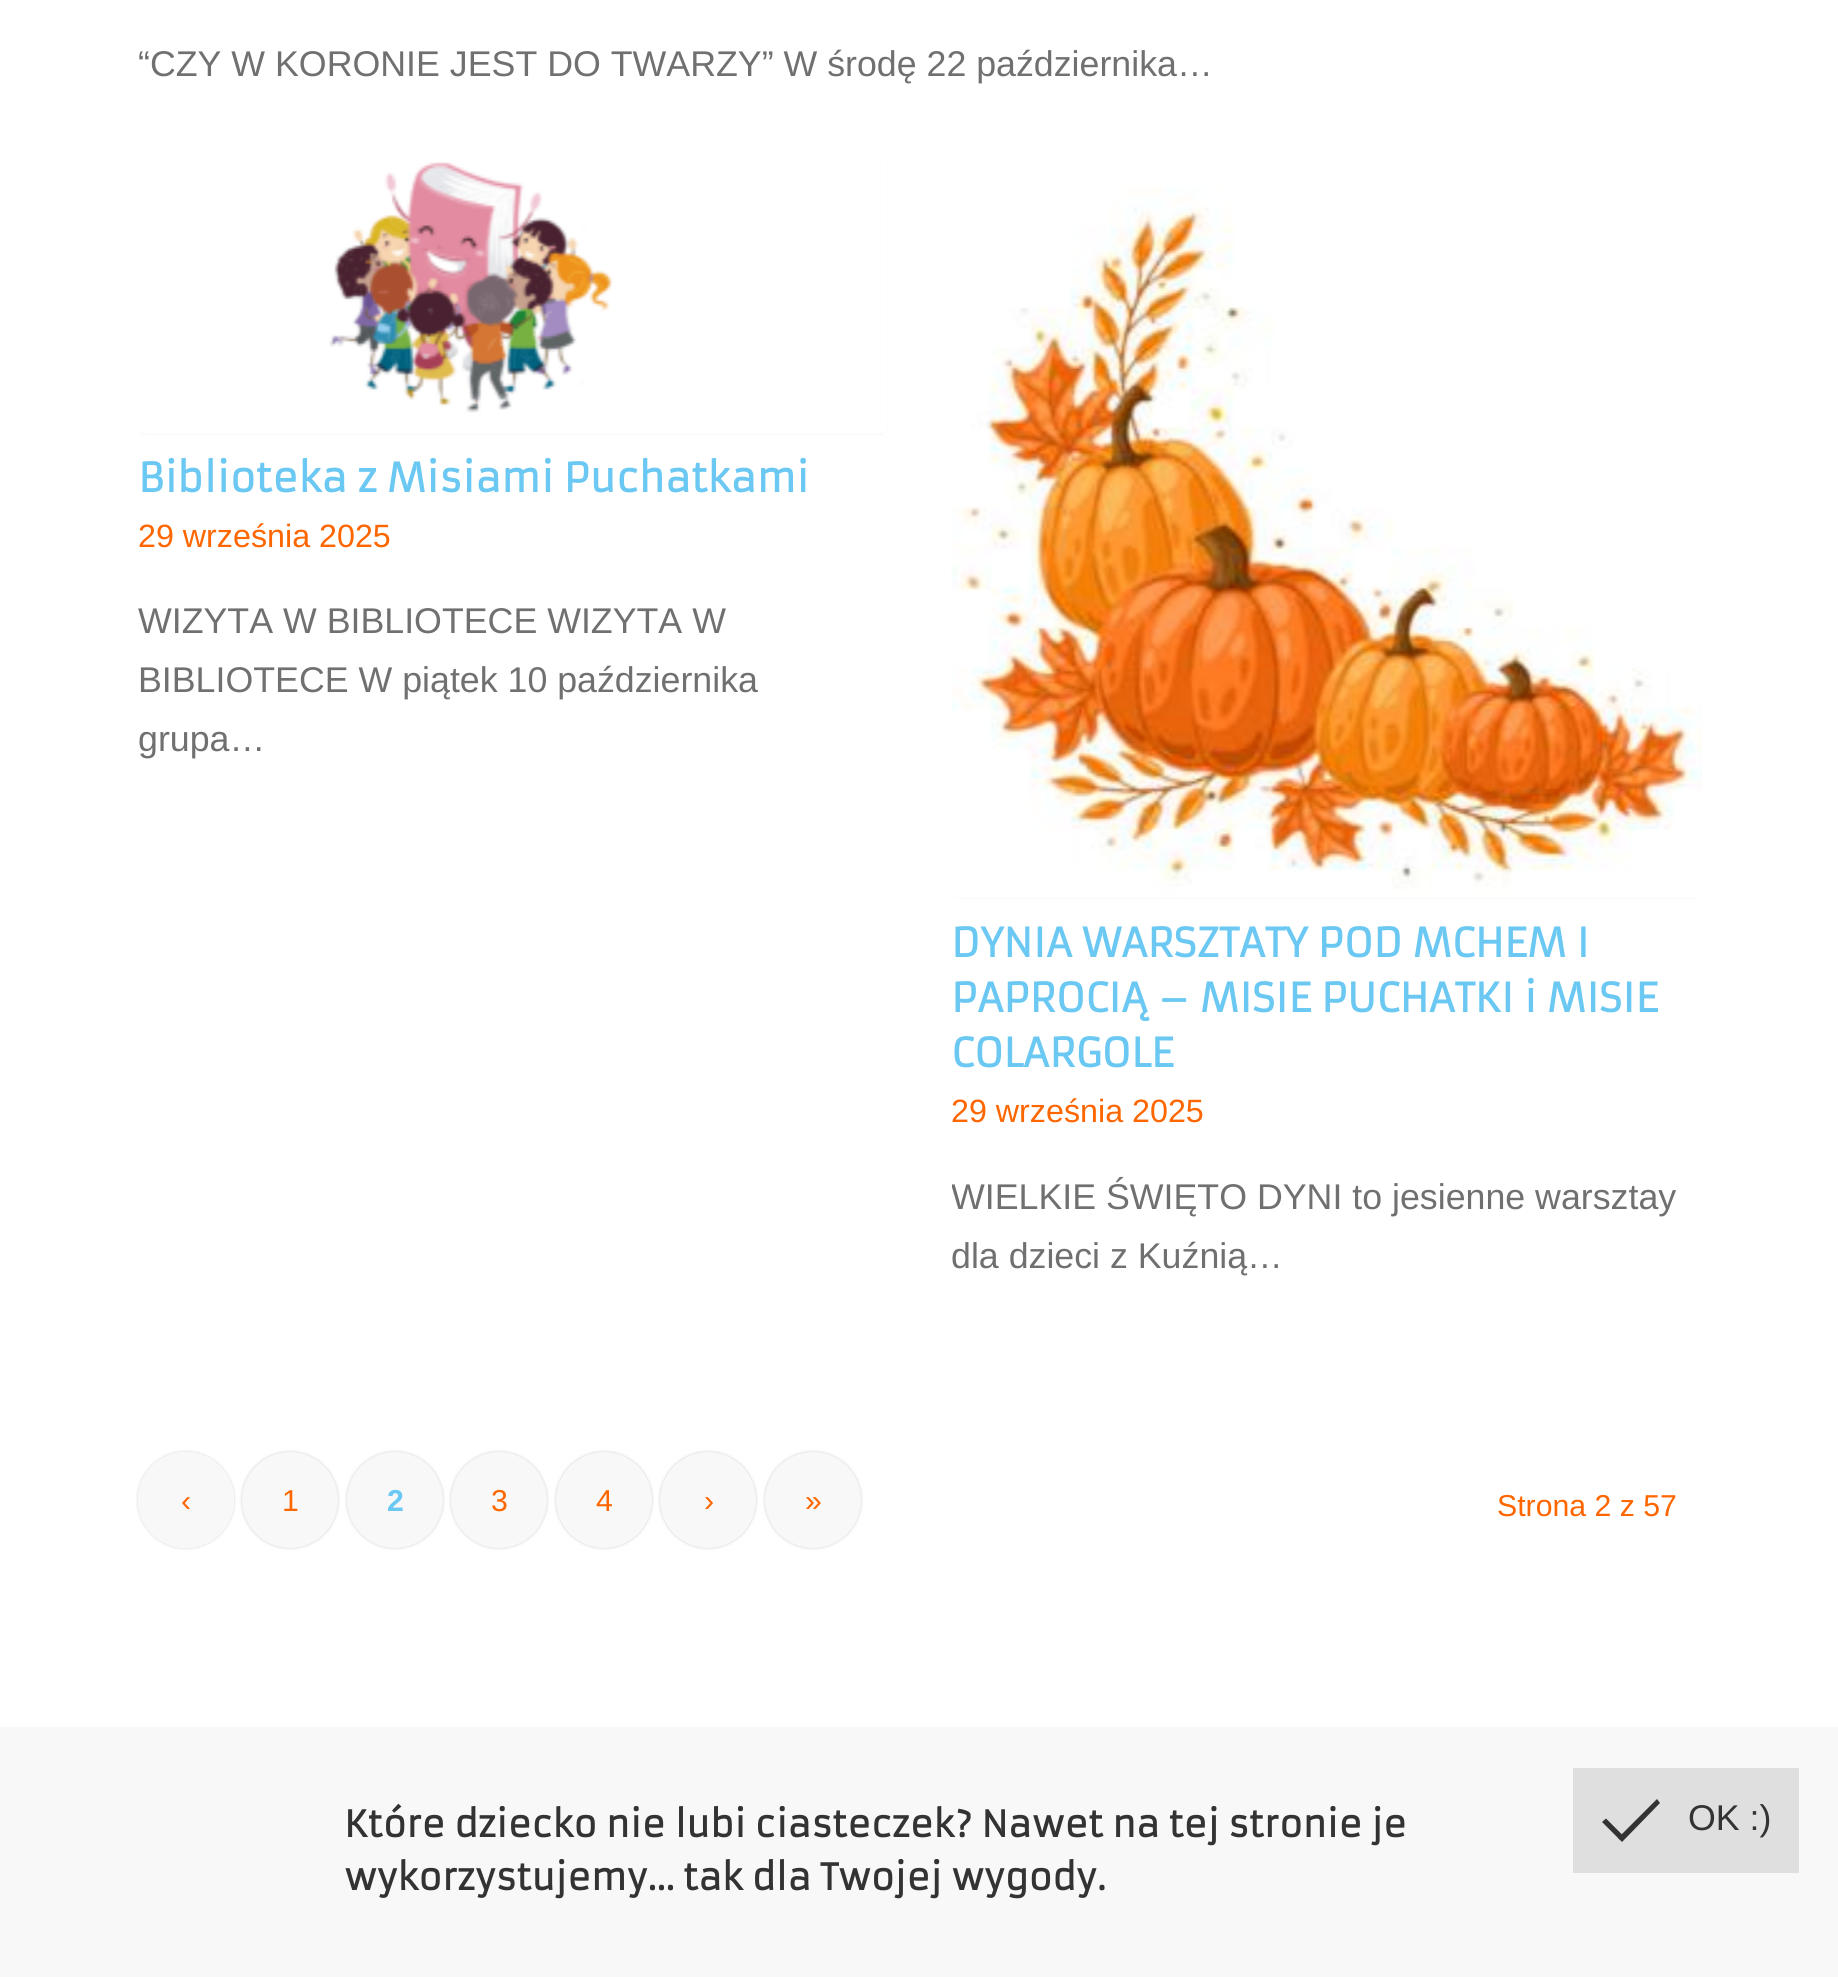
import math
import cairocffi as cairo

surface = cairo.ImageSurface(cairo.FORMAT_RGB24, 1838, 1977)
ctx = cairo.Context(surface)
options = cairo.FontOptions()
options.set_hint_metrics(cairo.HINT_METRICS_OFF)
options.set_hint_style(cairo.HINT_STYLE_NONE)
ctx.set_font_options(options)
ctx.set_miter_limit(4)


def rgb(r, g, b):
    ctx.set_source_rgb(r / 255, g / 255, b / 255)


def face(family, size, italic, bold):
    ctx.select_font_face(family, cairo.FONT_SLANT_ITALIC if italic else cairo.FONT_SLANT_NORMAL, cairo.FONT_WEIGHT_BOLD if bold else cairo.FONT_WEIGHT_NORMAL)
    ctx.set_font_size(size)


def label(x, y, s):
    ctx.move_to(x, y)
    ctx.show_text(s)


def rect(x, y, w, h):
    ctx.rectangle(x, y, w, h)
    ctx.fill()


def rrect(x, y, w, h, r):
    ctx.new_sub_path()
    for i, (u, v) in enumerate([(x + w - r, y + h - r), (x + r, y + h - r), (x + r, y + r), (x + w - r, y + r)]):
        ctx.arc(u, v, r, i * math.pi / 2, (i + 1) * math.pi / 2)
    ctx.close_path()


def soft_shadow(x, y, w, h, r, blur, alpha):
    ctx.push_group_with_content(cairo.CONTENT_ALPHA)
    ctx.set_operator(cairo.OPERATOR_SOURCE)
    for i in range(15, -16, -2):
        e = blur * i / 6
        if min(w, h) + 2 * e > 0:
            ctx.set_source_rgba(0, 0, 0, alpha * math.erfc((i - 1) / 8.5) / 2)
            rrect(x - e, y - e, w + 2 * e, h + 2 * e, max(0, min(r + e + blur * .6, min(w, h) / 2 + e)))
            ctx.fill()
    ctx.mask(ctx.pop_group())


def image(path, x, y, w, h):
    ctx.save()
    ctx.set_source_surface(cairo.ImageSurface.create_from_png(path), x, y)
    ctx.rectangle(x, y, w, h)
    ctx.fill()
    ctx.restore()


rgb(255, 255, 255)
ctx.paint()
face('Liberation Sans', 35.75, 0, 0)
rgb(112, 112, 112)
label(138, 76, '“CZY W KORONIE JEST DO TWARZY” W środę 22 października…')
rgb(248, 248, 248)
rrect(138, 149, 750, 286, 8)
ctx.fill()
image('image0.png', 138, 149, 750, 285)
face('Armata', 39.3, 0, 1)
rgb(106, 200, 243)
label(138, 492, 'Biblioteka z Misiami Puchatkami')
face('Liberation Sans', 32.25, 0, 0)
rgb(254, 102, 0)
label(138, 547, '29 września 2025')
face('Liberation Sans', 35.75, 0, 0)
rgb(112, 112, 112)
label(138, 633, 'WIZYTA W BIBLIOTECE WIZYTA W')
label(138, 692, 'BIBLIOTECE W piątek 10 października')
label(138, 751, 'grupa…')
rgb(248, 248, 248)
rrect(952, 149, 750, 750, 8)
ctx.fill()
image('image1.png', 951, 149, 751, 749)
face('Armata', 39.3, 0, 1)
rgb(106, 200, 243)
label(951, 957, 'DYNIA WARSZTATY POD MCHEM I')
label(951, 1012, 'PAPROCIĄ – MISIE PUCHATKI i MISIE')
label(951, 1067, 'COLARGOLE')
face('Liberation Sans', 32.25, 0, 0)
rgb(254, 102, 0)
label(951, 1122, '29 września 2025')
ctx.save()
ctx.rectangle(952, 1169, 750, 115)
ctx.clip()
face('Liberation Sans', 35.75, 0, 0)
rgb(112, 112, 112)
label(951, 1209, 'WIELKIE ŚWIĘTO DYNI to jesienne warsztay')
ctx.restore()
face('Liberation Sans', 35.75, 0, 0)
rgb(112, 112, 112)
label(951, 1268, 'dla dzieci z Kuźnią…')
ctx.save()
ctx.set_fill_rule(cairo.FILL_RULE_EVEN_ODD)
ctx.new_path()
ctx.move_to(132, 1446)
ctx.line_to(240, 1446)
ctx.line_to(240, 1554)
ctx.line_to(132, 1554)
ctx.close_path()
ctx.move_to(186, 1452)
ctx.curve_to(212.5, 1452, 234, 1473.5, 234, 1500)
ctx.curve_to(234, 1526.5, 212.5, 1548, 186, 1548)
ctx.curve_to(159.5, 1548, 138, 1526.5, 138, 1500)
ctx.curve_to(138, 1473.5, 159.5, 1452, 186, 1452)
ctx.close_path()
ctx.clip()
rgb(0, 0, 0)
soft_shadow(138, 1452, 96, 96, 48, 1.5, 0.2)
ctx.restore()
rgb(248, 248, 248)
ctx.arc(186, 1500, 48, 0, 2 * math.pi)
ctx.fill()
face('Liberation Sans', 30.25, 0, 0)
rgb(254, 102, 0)
label(181, 1511, '‹')
rgb(0, 0, 0)
soft_shadow(242, 1452, 96, 96, 48, 1.5, 0.2)
rgb(248, 248, 248)
ctx.arc(290, 1500, 48, 0, 2 * math.pi)
ctx.fill()
rgb(254, 102, 0)
label(282, 1511, '1')
rgb(0, 0, 0)
soft_shadow(347, 1452, 96, 96, 48, 1.5, 0.2)
rgb(248, 248, 248)
ctx.arc(395, 1500, 48, 0, 2 * math.pi)
ctx.fill()
face('Liberation Sans', 30.25, 0, 1)
rgb(106, 200, 243)
label(387, 1511, '2')
rgb(0, 0, 0)
soft_shadow(451, 1452, 96, 96, 48, 1.5, 0.2)
rgb(248, 248, 248)
ctx.arc(499, 1500, 48, 0, 2 * math.pi)
ctx.fill()
face('Liberation Sans', 30.25, 0, 0)
rgb(254, 102, 0)
label(491, 1511, '3')
rgb(0, 0, 0)
soft_shadow(556, 1452, 96, 96, 48, 1.5, 0.2)
rgb(248, 248, 248)
ctx.arc(604, 1500, 48, 0, 2 * math.pi)
ctx.fill()
rgb(254, 102, 0)
label(596, 1511, '4')
rgb(0, 0, 0)
soft_shadow(660, 1452, 96, 96, 48, 1.5, 0.2)
rgb(248, 248, 248)
ctx.arc(708, 1500, 48, 0, 2 * math.pi)
ctx.fill()
rgb(254, 102, 0)
label(704, 1511, '›')
rgb(0, 0, 0)
soft_shadow(765, 1452, 96, 96, 48, 1.5, 0.2)
rgb(248, 248, 248)
ctx.arc(813, 1500, 48, 0, 2 * math.pi)
ctx.fill()
rgb(254, 102, 0)
label(805, 1511, '»')
label(1497, 1516, 'Strona 2 z 57')
rgb(248, 248, 248)
rect(0, 1727, 1838, 250)
face('Armata', 35.75, 0, 1)
rgb(51, 51, 51)
label(344, 1837, 'Które dziecko nie lubi ciasteczek? Nawet na tej stronie je')
label(344, 1890, 'wykorzystujemy... tak dla Twojej wygody.')
rgb(223, 223, 223)
rect(1573, 1768, 226, 105)
rgb(51, 51, 51)
ctx.new_path()
ctx.move_to(1618, 1838)
ctx.line_to(1657, 1799)
ctx.line_to(1660, 1803)
ctx.line_to(1622, 1842)
ctx.close_path()
ctx.fill()
ctx.new_path()
ctx.move_to(1602, 1822)
ctx.line_to(1606, 1818.5)
ctx.line_to(1623.5, 1836)
ctx.line_to(1619.5, 1839.5)
ctx.close_path()
ctx.fill()
face('Liberation Sans', 35.75, 0, 0)
label(1688, 1830, 'OK :)')
surface.write_to_png('render.png')
